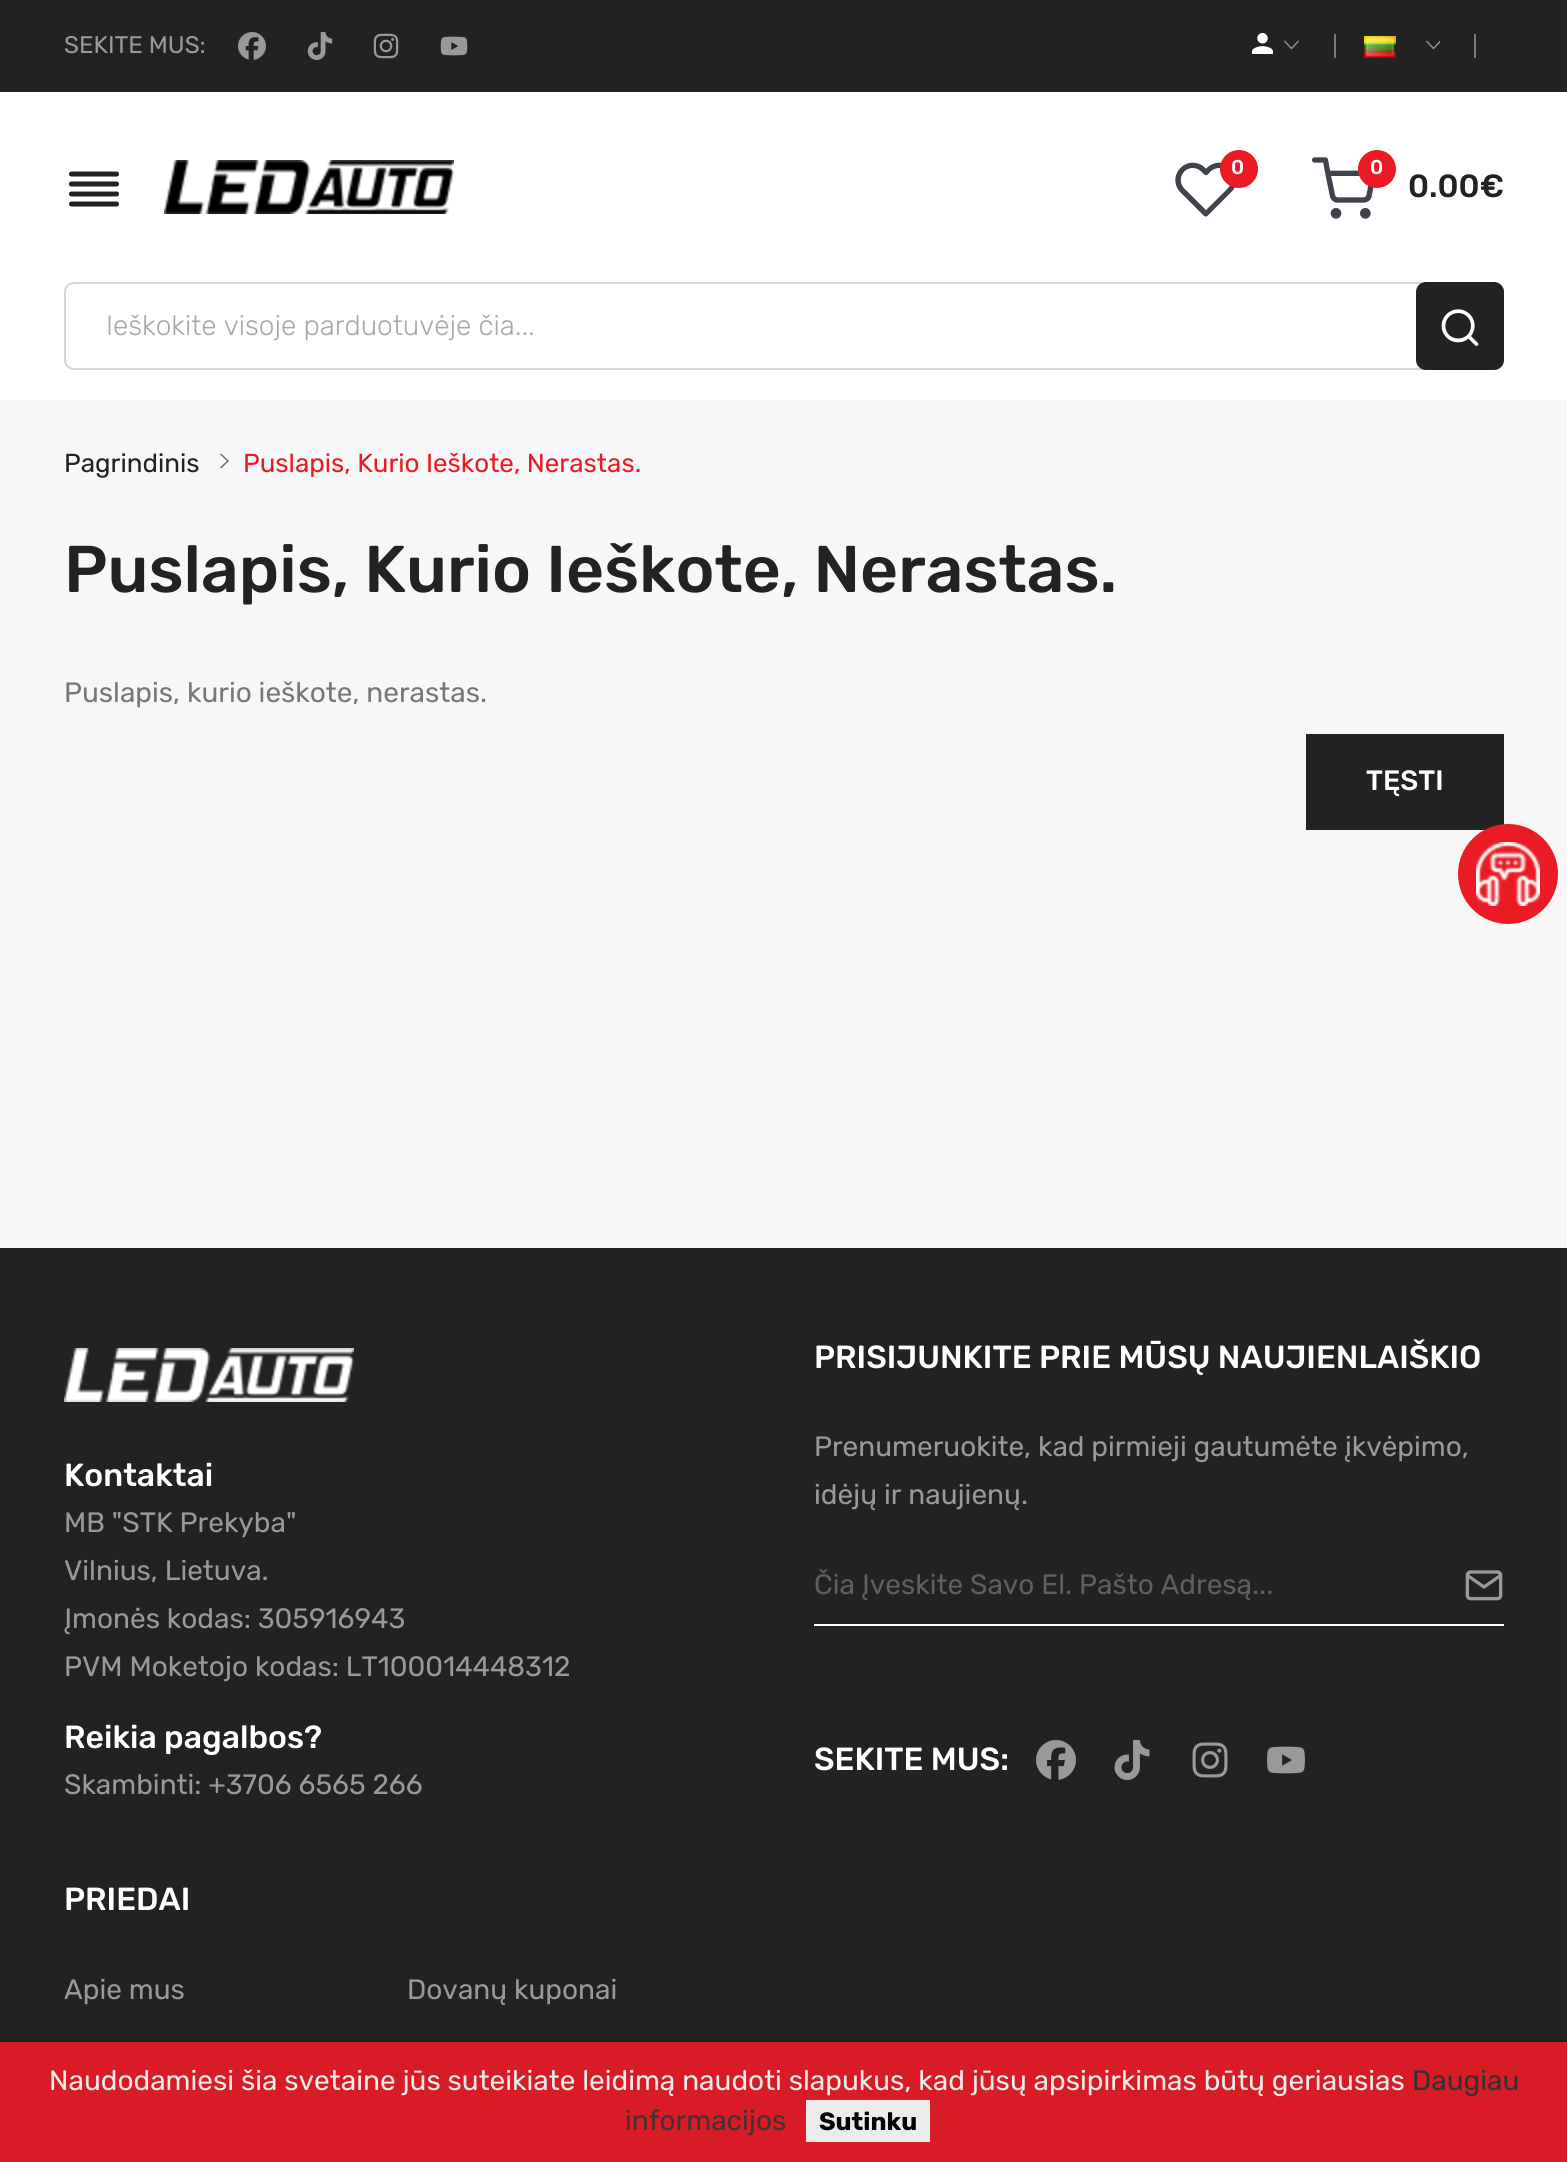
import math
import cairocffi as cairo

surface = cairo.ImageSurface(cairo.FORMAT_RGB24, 1567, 2162)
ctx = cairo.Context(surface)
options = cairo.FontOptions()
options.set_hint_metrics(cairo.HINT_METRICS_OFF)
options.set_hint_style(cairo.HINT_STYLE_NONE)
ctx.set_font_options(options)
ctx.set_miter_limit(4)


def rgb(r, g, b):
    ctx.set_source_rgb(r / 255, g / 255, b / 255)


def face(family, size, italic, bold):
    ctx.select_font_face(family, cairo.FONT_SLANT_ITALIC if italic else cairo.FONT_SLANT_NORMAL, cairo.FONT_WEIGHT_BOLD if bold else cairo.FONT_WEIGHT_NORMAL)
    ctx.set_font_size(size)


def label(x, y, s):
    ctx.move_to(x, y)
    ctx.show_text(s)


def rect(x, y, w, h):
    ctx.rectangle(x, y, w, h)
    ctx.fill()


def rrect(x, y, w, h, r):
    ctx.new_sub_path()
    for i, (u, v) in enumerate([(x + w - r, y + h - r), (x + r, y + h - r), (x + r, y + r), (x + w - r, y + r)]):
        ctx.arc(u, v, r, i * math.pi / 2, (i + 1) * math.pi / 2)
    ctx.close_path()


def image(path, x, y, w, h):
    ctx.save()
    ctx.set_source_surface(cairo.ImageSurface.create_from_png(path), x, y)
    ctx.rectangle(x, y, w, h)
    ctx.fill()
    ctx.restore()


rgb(247, 247, 247)
ctx.paint()
rgb(34, 34, 34)
rect(0, 0, 1567, 92)
face('Rubik', 24, 0, 0)
rgb(153, 153, 153)
label(64, 53, 'SEKITE MUS:')
image('image0.png', 238, 32, 28, 28)
image('image1.png', 307, 32, 26, 28)
image('image2.png', 373, 33, 26, 26)
image('image3.png', 440, 36, 28, 20)
image('image4.png', 1252, 33, 21, 21)
image('image5.png', 1284, 40, 15, 10)
rgb(122, 122, 122)
rect(1334, 34, 2, 24)
image('image6.png', 1364, 36, 32, 22)
image('image7.png', 1426, 40, 14, 10)
rect(1474, 34, 2, 24)
rgb(255, 255, 255)
rect(0, 92, 1567, 308)
image('image8.png', 69, 171, 50, 36)
image('image9.png', 164, 160, 290, 54)
image('image10.png', 1175, 162, 60, 55)
rgb(234, 27, 37)
ctx.arc(1239, 169, 19, 0, 2 * math.pi)
ctx.fill()
face('Rubik Medium', 20, 0, 0)
rgb(255, 255, 255)
label(1231, 174, '0')
image('image11.png', 1312, 157, 62, 62)
rgb(234, 27, 37)
ctx.arc(1377, 169, 19, 0, 2 * math.pi)
ctx.fill()
rgb(255, 255, 255)
label(1370, 174, '0')
face('Rubik Medium', 32, 0, 0)
rgb(34, 34, 34)
label(1408, 197, '0.00€')
rrect(65, 283, 1438, 86, 9)
rgb(214, 214, 214)
ctx.stroke()
face('Rubik Light', 28, 0, 0)
rgb(169, 168, 168)
label(106, 335, 'Ieškokite visoje parduotuvėje čia...')
rgb(34, 34, 34)
rrect(1416, 282, 88, 88, 10)
ctx.fill()
image('image12.png', 1441, 309, 38, 37)
rect(1306, 734, 198, 96)
rgb(234, 27, 37)
ctx.arc(1508, 874, 50, 0, 2 * math.pi)
ctx.fill()
image('image13.png', 1476, 842, 64, 64)
face('Rubik', 26, 0, 0)
rgb(34, 34, 34)
label(64, 472, 'Pagrindinis')
image('image14.png', 220, 453, 9, 16)
rgb(234, 27, 37)
label(243, 472, 'Puslapis, Kurio Ieškote, Nerastas.')
face('Rubik Medium', 66, 0, 0)
rgb(34, 34, 34)
label(64, 592, 'Puslapis, Kurio Ieškote, Nerastas.')
face('Rubik', 28, 0, 0)
rgb(119, 119, 119)
label(64, 702, 'Puslapis, kurio ieškote, nerastas.')
face('Rubik Medium', 28, 0, 0)
rgb(255, 255, 255)
label(1366, 790, 'TĘSTI')
rgb(34, 34, 34)
rect(0, 1248, 1567, 914)
ctx.set_source_rgba(0.918, 0.106, 0.145, 0.91)
rect(0, 2042, 1567, 120)
face('Rubik', 28, 0, 0)
rgb(236, 236, 236)
label(49, 2090, 'Naudodamiesi šia svetaine jūs suteikiate leidimą naudoti slapukus, kad jūsų apsipirkimas būtų geriausias')
rgb(50, 50, 50)
label(1412, 2090, 'Daugiau')
rgb(66, 50, 51)
label(625, 2130, 'informacijos')
rgb(236, 236, 236)
rect(806, 2100, 124, 42)
face('Rubik', 25, 0, 1)
rgb(3, 3, 3)
label(819, 2130, 'Sutinku')
image('image15.png', 64, 1348, 290, 54)
face('Rubik Medium', 32, 0, 0)
rgb(255, 255, 255)
label(64, 1486, 'Kontaktai')
face('Rubik', 28, 0, 0)
rgb(153, 153, 153)
label(64, 1532, 'MB "STK Prekyba"')
label(64, 1580, 'Vilnius, Lietuva.')
label(64, 1628, 'Įmonės kodas: 305916943')
label(64, 1676, 'PVM Moketojo kodas: LT100014448312')
face('Rubik Medium', 32, 0, 0)
rgb(255, 255, 255)
label(64, 1748, 'Reikia pagalbos?')
face('Rubik', 28, 0, 0)
rgb(153, 153, 153)
label(64, 1794, 'Skambinti: +3706 6565 266')
face('Rubik Medium', 32, 0, 0)
rgb(255, 255, 255)
label(814, 1368, 'PRISIJUNKITE PRIE MŪSŲ NAUJIENLAIŠKIO')
face('Rubik', 28, 0, 0)
rgb(153, 153, 153)
label(814, 1456, 'Prenumeruokite, kad pirmieji gautumėte įkvėpimo,')
label(814, 1504, 'idėjų ir naujienų.')
rgb(255, 255, 255)
rect(814, 1624, 690, 2)
rgb(95, 95, 95)
label(814, 1594, 'Čia Įveskite Savo El. Pašto Adresą...')
image('image16.png', 1465, 1570, 38, 31)
face('Rubik Medium', 32, 0, 0)
rgb(255, 255, 255)
label(814, 1770, 'SEKITE MUS:')
image('image17.png', 1036, 1740, 40, 40)
image('image18.png', 1114, 1740, 36, 40)
image('image19.png', 1192, 1742, 36, 36)
image('image20.png', 1267, 1746, 38, 28)
label(64, 1910, 'PRIEDAI')
face('Rubik', 28, 0, 0)
rgb(153, 153, 153)
label(64, 1999, 'Apie mus')
label(407, 1999, 'Dovanų kuponai')
surface.write_to_png('render.png')
